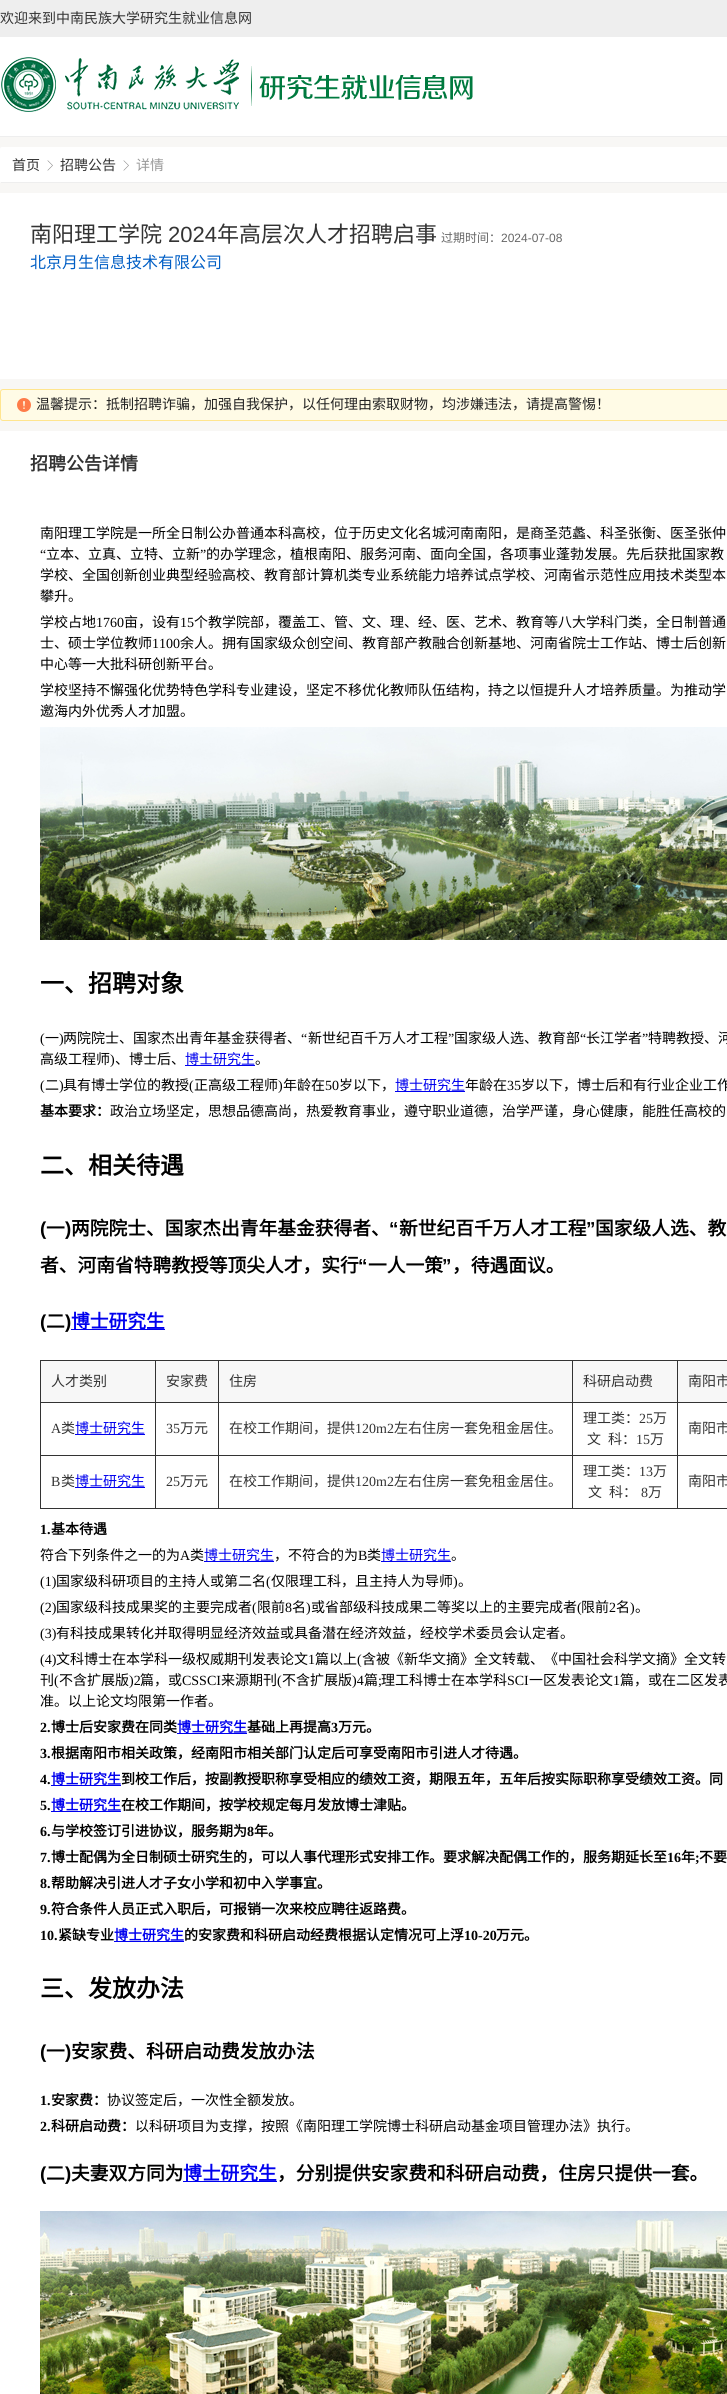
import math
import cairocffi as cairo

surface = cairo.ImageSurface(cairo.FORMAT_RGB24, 727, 2394)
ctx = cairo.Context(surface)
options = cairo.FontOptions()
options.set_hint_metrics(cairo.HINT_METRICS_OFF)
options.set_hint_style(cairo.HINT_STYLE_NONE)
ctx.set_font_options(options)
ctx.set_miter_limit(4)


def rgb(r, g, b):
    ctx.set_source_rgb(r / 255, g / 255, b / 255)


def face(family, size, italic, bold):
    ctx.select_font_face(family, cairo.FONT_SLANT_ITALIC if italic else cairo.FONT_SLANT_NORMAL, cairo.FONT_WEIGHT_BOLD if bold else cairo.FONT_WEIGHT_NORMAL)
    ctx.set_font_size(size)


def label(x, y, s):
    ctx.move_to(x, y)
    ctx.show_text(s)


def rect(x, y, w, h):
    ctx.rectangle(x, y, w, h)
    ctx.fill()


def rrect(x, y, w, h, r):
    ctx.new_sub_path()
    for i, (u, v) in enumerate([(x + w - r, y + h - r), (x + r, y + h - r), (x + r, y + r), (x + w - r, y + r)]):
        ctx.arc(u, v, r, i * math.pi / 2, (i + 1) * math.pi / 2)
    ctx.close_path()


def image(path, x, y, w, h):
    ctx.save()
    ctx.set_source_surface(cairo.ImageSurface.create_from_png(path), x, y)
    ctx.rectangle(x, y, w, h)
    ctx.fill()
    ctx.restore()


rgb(248, 247, 245)
ctx.paint()
rgb(238, 238, 238)
rect(0, 0, 727, 37)
face('Noto Sans CJK SC', 14, 0, 0)
rgb(51, 51, 51)
label(0, 23, '欢迎来到中南民族大学研究生就业信息网')
rgb(255, 255, 255)
rect(0, 37, 727, 99)
rgb(238, 238, 238)
rect(0, 136, 727, 1)
image('image0.png', 1, 57, 472, 55)
rgb(255, 255, 255)
rrect(0, 147, 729, 36, 2)
ctx.fill()
rgb(238, 238, 238)
rect(1, 182, 726, 1)
rgb(51, 51, 51)
label(12, 170, '首页')
image('image1.png', 47, 160, 6, 11)
label(60, 170, '招聘公告')
image('image1.png', 123, 160, 6, 11)
rgb(153, 153, 153)
label(136, 170, '详情')
rgb(255, 255, 255)
rect(0, 193, 727, 2201)
face('Noto Sans CJK SC', 22, 0, 0)
rgb(51, 51, 51)
label(30, 242, '南阳理工学院')
face('Liberation Sans', 22, 0, 0)
label(168, 242, '2024')
face('Noto Sans CJK SC', 22, 0, 0)
label(217, 242, '年高层次人才招聘启事')
face('Noto Sans CJK SC', 12, 0, 0)
rgb(102, 102, 102)
label(441, 242, '过期时间：')
face('Liberation Sans', 12, 0, 0)
label(501, 242, '2024-07-08')
face('Noto Sans CJK SC', 16, 0, 0)
rgb(0, 94, 197)
label(30, 268, '北京月生信息技术有限公司')
rgb(248, 247, 245)
rect(0, 379, 727, 52)
rgb(255, 251, 230)
rrect(0.5, 389.5, 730, 31, 2.5)
ctx.fill_preserve()
rgb(255, 229, 143)
ctx.set_line_width(1)
ctx.stroke()
image('image2.png', 17, 398, 14, 14)
face('Noto Sans CJK SC', 14, 0, 0)
rgb(34, 34, 34)
label(36, 409, '温馨提示：抵制招聘诈骗，加强自我保护，以任何理由索取财物，均涉嫌违法，请提高警惕！')
face('Noto Sans CJK SC', 18, 0, 1)
rgb(51, 51, 51)
label(30, 470, '招聘公告详情')
face('Noto Sans CJK SC', 14, 0, 0)
rgb(0, 0, 0)
label(40, 538, '南阳理工学院是一所全日制公办普通本科高校，位于历史文化名城河南南阳，是商圣范蠡、科圣张衡、医圣张仲')
face('Liberation Serif', 14, 0, 0)
label(40, 559, '“')
face('Noto Sans CJK SC', 14, 0, 0)
label(46, 559, '立本、立真、立特、立新')
face('Liberation Serif', 14, 0, 0)
label(200, 559, '”')
face('Noto Sans CJK SC', 14, 0, 0)
label(206, 559, '的办学理念，植根南阳、服务河南、面向全国，各项事业蓬勃发展。先后获批国家教')
label(40, 580, '学校、全国创新创业典型经验高校、教育部计算机类专业系统能力培养试点学校、河南省示范性应用技术类型本')
label(40, 601, '攀升。')
label(40, 627, '学校占地')
face('Liberation Serif', 14, 0, 0)
label(96, 627, '1760')
face('Noto Sans CJK SC', 14, 0, 0)
label(124, 627, '亩，设有')
face('Liberation Serif', 14, 0, 0)
label(180, 627, '15')
face('Noto Sans CJK SC', 14, 0, 0)
label(194, 627, '个教学院部，覆盖工、管、文、理、经、医、艺术、教育等八大学科门类，全日制普通')
label(40, 648, '士、硕士学位教师')
face('Liberation Serif', 14, 0, 0)
label(152, 648, '1100')
face('Noto Sans CJK SC', 14, 0, 0)
label(180, 648, '余人。拥有国家级众创空间、教育部产教融合创新基地、河南省院士工作站、博士后创新')
label(40, 669, '中心等一大批科研创新平台。')
label(40, 695, '学校坚持不懈强化优势特色学科专业建设，坚定不移优化教师队伍结构，持之以恒提升人才培养质量。为推动学')
label(40, 716, '邀海内外优秀人才加盟。')
image('image3.png', 40, 727, 687, 213)
face('Noto Sans CJK SC', 24, 0, 1)
label(40, 992, '一、招聘对象')
face('Liberation Serif', 14, 0, 0)
label(40, 1043, '(')
face('Noto Sans CJK SC', 14, 0, 0)
label(45, 1043, '一')
face('Liberation Serif', 14, 0, 0)
label(59, 1043, ')')
face('Noto Sans CJK SC', 14, 0, 0)
label(63, 1043, '两院院士、国家杰出青年基金获得者、')
face('Liberation Serif', 14, 0, 0)
label(301, 1043, '“')
face('Noto Sans CJK SC', 14, 0, 0)
label(308, 1043, '新世纪百千万人才工程')
face('Liberation Serif', 14, 0, 0)
label(448, 1043, '”')
face('Noto Sans CJK SC', 14, 0, 0)
label(454, 1043, '国家级人选、教育部')
face('Liberation Serif', 14, 0, 0)
label(580, 1043, '“')
face('Noto Sans CJK SC', 14, 0, 0)
label(586, 1043, '长江学者')
face('Liberation Serif', 14, 0, 0)
label(642, 1043, '”')
face('Noto Sans CJK SC', 14, 0, 0)
label(648, 1043, '特聘教授、河')
label(40, 1064, '高级工程师')
face('Liberation Serif', 14, 0, 0)
label(110, 1064, ')')
face('Noto Sans CJK SC', 14, 0, 0)
label(115, 1064, '、博士后、')
rgb(0, 0, 238)
rect(185, 1065, 70, 1)
label(185, 1064, '博士研究生')
rgb(0, 0, 0)
label(255, 1064, '。')
face('Liberation Serif', 14, 0, 0)
label(40, 1090, '(')
face('Noto Sans CJK SC', 14, 0, 0)
label(45, 1090, '二')
face('Liberation Serif', 14, 0, 0)
label(59, 1090, ')')
face('Noto Sans CJK SC', 14, 0, 0)
label(63, 1090, '具有博士学位的教授')
face('Liberation Serif', 14, 0, 0)
label(189, 1090, '(')
face('Noto Sans CJK SC', 14, 0, 0)
label(194, 1090, '正高级工程师')
face('Liberation Serif', 14, 0, 0)
label(278, 1090, ')')
face('Noto Sans CJK SC', 14, 0, 0)
label(283, 1090, '年龄在')
face('Liberation Serif', 14, 0, 0)
label(325, 1090, '50')
face('Noto Sans CJK SC', 14, 0, 0)
label(339, 1090, '岁以下，')
rgb(0, 0, 238)
rect(395, 1091, 70, 1)
label(395, 1090, '博士研究生')
rgb(0, 0, 0)
label(465, 1090, '年龄在')
face('Liberation Serif', 14, 0, 0)
label(507, 1090, '35')
face('Noto Sans CJK SC', 14, 0, 0)
label(521, 1090, '岁以下，博士后和有行业企业工作')
face('Noto Sans CJK SC', 14, 0, 1)
label(40, 1116, '基本要求：')
face('Noto Sans CJK SC', 14, 0, 0)
label(110, 1116, '政治立场坚定，思想品德高尚，热爱教育事业，遵守职业道德，治学严谨，身心健康，能胜任高校的')
face('Noto Sans CJK SC', 24, 0, 1)
label(40, 1174, '二、相关待遇')
face('Liberation Sans', 18.75, 0, 1)
label(40, 1235, '(')
face('Noto Sans CJK SC', 18.75, 0, 1)
label(46, 1235, '一')
face('Liberation Sans', 18.75, 0, 1)
label(65, 1235, ')')
face('Noto Sans CJK SC', 18.75, 0, 1)
label(71, 1235, '两院院士、国家杰出青年基金获得者、')
face('Liberation Sans', 18.75, 0, 1)
label(389, 1235, '“')
face('Noto Sans CJK SC', 18.75, 0, 1)
label(399, 1235, '新世纪百千万人才工程')
face('Liberation Sans', 18.75, 0, 1)
label(586, 1235, '”')
face('Noto Sans CJK SC', 18.75, 0, 1)
label(595, 1235, '国家级人选、教')
label(40, 1272, '者、河南省特聘教授等顶尖人才，实行')
face('Liberation Sans', 18.75, 0, 1)
label(358, 1272, '“')
face('Noto Sans CJK SC', 18.75, 0, 1)
label(368, 1272, '一人一策')
face('Liberation Sans', 18.75, 0, 1)
label(442, 1272, '”')
face('Noto Sans CJK SC', 18.75, 0, 1)
label(452, 1272, '，待遇面议。')
face('Liberation Sans', 18.75, 0, 1)
label(40, 1328, '(')
face('Noto Sans CJK SC', 18.75, 0, 1)
label(46, 1328, '二')
face('Liberation Sans', 18.75, 0, 1)
label(65, 1328, ')')
rgb(0, 0, 238)
rect(71, 1329, 94, 1)
face('Noto Sans CJK SC', 18.75, 0, 1)
label(71, 1328, '博士研究生')
rgb(247, 247, 247)
rect(41, 1361, 114, 41)
rgb(51, 51, 51)
rect(677, 1360, 50, 1)
rect(677, 1402, 50, 1)
rect(677, 1455, 50, 1)
rect(677, 1508, 50, 1)
rect(677, 1455, 1, 54)
rect(572, 1455, 106, 1)
rect(677, 1402, 1, 54)
rect(572, 1402, 106, 1)
rect(677, 1360, 1, 43)
rect(572, 1360, 106, 1)
rect(572, 1508, 106, 1)
rect(572, 1455, 1, 54)
rect(218, 1455, 355, 1)
rect(572, 1402, 1, 54)
rect(218, 1402, 355, 1)
rect(572, 1360, 1, 43)
rect(218, 1360, 355, 1)
rect(218, 1508, 355, 1)
rect(218, 1455, 1, 54)
rect(155, 1455, 64, 1)
rect(218, 1402, 1, 54)
rect(155, 1402, 64, 1)
rect(218, 1360, 1, 43)
rect(155, 1360, 64, 1)
rect(155, 1508, 64, 1)
rect(155, 1455, 1, 54)
rect(40, 1455, 116, 1)
rect(155, 1402, 1, 54)
rect(40, 1402, 116, 1)
rect(155, 1360, 1, 43)
rect(40, 1360, 116, 1)
rect(40, 1508, 116, 1)
rect(40, 1455, 1, 54)
rect(40, 1402, 1, 54)
rect(40, 1360, 1, 43)
face('Noto Sans CJK SC', 14, 0, 0)
label(51, 1386, '人才类别')
rgb(247, 247, 247)
rect(156, 1361, 62, 41)
rgb(51, 51, 51)
label(166, 1386, '安家费')
rgb(247, 247, 247)
rect(219, 1361, 353, 41)
rgb(51, 51, 51)
label(229, 1386, '住房')
rgb(247, 247, 247)
rect(573, 1361, 104, 41)
rgb(51, 51, 51)
label(583, 1386, '科研启动费')
rgb(247, 247, 247)
rect(678, 1361, 49, 41)
rgb(51, 51, 51)
label(688, 1386, '南阳市')
face('Liberation Serif', 14, 0, 0)
label(51, 1433, 'A')
face('Noto Sans CJK SC', 14, 0, 0)
label(61, 1433, '类')
rgb(0, 0, 238)
rect(75, 1434, 70, 1)
label(75, 1433, '博士研究生')
face('Liberation Serif', 14, 0, 0)
rgb(51, 51, 51)
label(166, 1433, '35')
face('Noto Sans CJK SC', 14, 0, 0)
label(180, 1433, '万元')
label(229, 1433, '在校工作期间，提供')
face('Liberation Serif', 14, 0, 0)
label(355, 1433, '120m2')
face('Noto Sans CJK SC', 14, 0, 0)
label(394, 1433, '左右住房一套免租金居住。')
label(583, 1423, '理工类：')
face('Liberation Serif', 14, 0, 0)
label(639, 1423, '25')
face('Noto Sans CJK SC', 14, 0, 0)
label(653, 1423, '万')
label(587, 1444, '文')
label(608, 1444, '科：')
face('Liberation Serif', 14, 0, 0)
label(636, 1444, '15')
face('Noto Sans CJK SC', 14, 0, 0)
label(650, 1444, '万')
label(688, 1433, '南阳市')
face('Liberation Serif', 14, 0, 0)
label(51, 1486, 'B')
face('Noto Sans CJK SC', 14, 0, 0)
label(61, 1486, '类')
rgb(0, 0, 238)
rect(75, 1487, 70, 1)
label(75, 1486, '博士研究生')
face('Liberation Serif', 14, 0, 0)
rgb(51, 51, 51)
label(166, 1486, '25')
face('Noto Sans CJK SC', 14, 0, 0)
label(180, 1486, '万元')
label(229, 1486, '在校工作期间，提供')
face('Liberation Serif', 14, 0, 0)
label(355, 1486, '120m2')
face('Noto Sans CJK SC', 14, 0, 0)
label(394, 1486, '左右住房一套免租金居住。')
label(583, 1476, '理工类：')
face('Liberation Serif', 14, 0, 0)
label(639, 1476, '13')
face('Noto Sans CJK SC', 14, 0, 0)
label(653, 1476, '万')
label(588, 1497, '文')
label(609, 1497, '科：')
face('Liberation Serif', 14, 0, 0)
label(641, 1497, '8')
face('Noto Sans CJK SC', 14, 0, 0)
label(648, 1497, '万')
label(688, 1486, '南阳市')
face('Liberation Serif', 14, 0, 1)
rgb(0, 0, 0)
label(40, 1534, '1.')
face('Noto Sans CJK SC', 14, 0, 1)
label(51, 1534, '基本待遇')
face('Noto Sans CJK SC', 14, 0, 0)
label(40, 1560, '符合下列条件之一的为')
face('Liberation Serif', 14, 0, 0)
label(180, 1560, 'A')
face('Noto Sans CJK SC', 14, 0, 0)
label(190, 1560, '类')
rgb(0, 0, 238)
rect(204, 1561, 70, 1)
label(204, 1560, '博士研究生')
rgb(0, 0, 0)
label(274, 1560, '，不符合的为')
face('Liberation Serif', 14, 0, 0)
label(358, 1560, 'B')
face('Noto Sans CJK SC', 14, 0, 0)
label(367, 1560, '类')
rgb(0, 0, 238)
rect(381, 1561, 70, 1)
label(381, 1560, '博士研究生')
rgb(0, 0, 0)
label(451, 1560, '。')
face('Liberation Serif', 14, 0, 0)
label(40, 1586, '(1)')
face('Noto Sans CJK SC', 14, 0, 0)
label(56, 1586, '国家级科研项目的主持人或第二名')
face('Liberation Serif', 14, 0, 0)
label(266, 1586, '(')
face('Noto Sans CJK SC', 14, 0, 0)
label(271, 1586, '仅限理工科，且主持人为导师')
face('Liberation Serif', 14, 0, 0)
label(453, 1586, ')')
face('Noto Sans CJK SC', 14, 0, 0)
label(458, 1586, '。')
face('Liberation Serif', 14, 0, 0)
label(40, 1612, '(2)')
face('Noto Sans CJK SC', 14, 0, 0)
label(56, 1612, '国家级科技成果奖的主要完成者')
face('Liberation Serif', 14, 0, 0)
label(252, 1612, '(')
face('Noto Sans CJK SC', 14, 0, 0)
label(257, 1612, '限前')
face('Liberation Serif', 14, 0, 0)
label(285, 1612, '8')
face('Noto Sans CJK SC', 14, 0, 0)
label(292, 1612, '名')
face('Liberation Serif', 14, 0, 0)
label(306, 1612, ')')
face('Noto Sans CJK SC', 14, 0, 0)
label(311, 1612, '或省部级科技成果二等奖以上的主要完成者')
face('Liberation Serif', 14, 0, 0)
label(577, 1612, '(')
face('Noto Sans CJK SC', 14, 0, 0)
label(581, 1612, '限前')
face('Liberation Serif', 14, 0, 0)
label(609, 1612, '2')
face('Noto Sans CJK SC', 14, 0, 0)
label(616, 1612, '名')
face('Liberation Serif', 14, 0, 0)
label(630, 1612, ')')
face('Noto Sans CJK SC', 14, 0, 0)
label(635, 1612, '。')
face('Liberation Serif', 14, 0, 0)
label(40, 1638, '(3)')
face('Noto Sans CJK SC', 14, 0, 0)
label(56, 1638, '有科技成果转化并取得明显经济效益或具备潜在经济效益，经校学术委员会认定者。')
face('Liberation Serif', 14, 0, 0)
label(40, 1664, '(4)')
face('Noto Sans CJK SC', 14, 0, 0)
label(56, 1664, '文科博士在本学科一级权威期刊发表论文')
face('Liberation Serif', 14, 0, 0)
label(308, 1664, '1')
face('Noto Sans CJK SC', 14, 0, 0)
label(315, 1664, '篇以上')
face('Liberation Serif', 14, 0, 0)
label(357, 1664, '(')
face('Noto Sans CJK SC', 14, 0, 0)
label(362, 1664, '含被《新华文摘》全文转载、《中国社会科学文摘》全文转')
label(40, 1685, '刊')
face('Liberation Serif', 14, 0, 0)
label(54, 1685, '(')
face('Noto Sans CJK SC', 14, 0, 0)
label(59, 1685, '不含扩展版')
face('Liberation Serif', 14, 0, 0)
label(129, 1685, ')2')
face('Noto Sans CJK SC', 14, 0, 0)
label(140, 1685, '篇，或')
face('Liberation Serif', 14, 0, 0)
label(182, 1685, 'CSSCI')
face('Noto Sans CJK SC', 14, 0, 0)
label(221, 1685, '来源期刊')
face('Liberation Serif', 14, 0, 0)
label(277, 1685, '(')
face('Noto Sans CJK SC', 14, 0, 0)
label(282, 1685, '不含扩展版')
face('Liberation Serif', 14, 0, 0)
label(352, 1685, ')4')
face('Noto Sans CJK SC', 14, 0, 0)
label(364, 1685, '篇')
face('Liberation Serif', 14, 0, 0)
label(378, 1685, ';')
face('Noto Sans CJK SC', 14, 0, 0)
label(381, 1685, '理工科博士在本学科')
face('Liberation Serif', 14, 0, 0)
label(507, 1685, 'SCI')
face('Noto Sans CJK SC', 14, 0, 0)
label(529, 1685, '一区发表论文')
face('Liberation Serif', 14, 0, 0)
label(613, 1685, '1')
face('Noto Sans CJK SC', 14, 0, 0)
label(620, 1685, '篇，或在二区发表')
label(40, 1706, '准。以上论文均限第一作者。')
face('Liberation Serif', 14, 0, 1)
label(40, 1732, '2.')
face('Noto Sans CJK SC', 14, 0, 1)
label(51, 1732, '博士后安家费在同类')
rgb(0, 0, 238)
rect(177, 1733, 70, 1)
label(177, 1732, '博士研究生')
rgb(0, 0, 0)
label(247, 1732, '基础上再提高')
face('Liberation Serif', 14, 0, 1)
label(331, 1732, '3')
face('Noto Sans CJK SC', 14, 0, 1)
label(338, 1732, '万元。')
face('Liberation Serif', 14, 0, 1)
label(40, 1758, '3.')
face('Noto Sans CJK SC', 14, 0, 1)
label(51, 1758, '根据南阳市相关政策，经南阳市相关部门认定后可享受南阳市引进人才待遇。')
face('Liberation Serif', 14, 0, 1)
label(40, 1784, '4.')
rgb(0, 0, 238)
rect(51, 1785, 70, 1)
face('Noto Sans CJK SC', 14, 0, 1)
label(51, 1784, '博士研究生')
rgb(0, 0, 0)
label(121, 1784, '到校工作后，按副教授职称享受相应的绩效工资，期限五年，五年后按实际职称享受绩效工资。同')
face('Liberation Serif', 14, 0, 1)
label(40, 1810, '5.')
rgb(0, 0, 238)
rect(51, 1811, 70, 1)
face('Noto Sans CJK SC', 14, 0, 1)
label(51, 1810, '博士研究生')
rgb(0, 0, 0)
label(121, 1810, '在校工作期间，按学校规定每月发放博士津贴。')
face('Liberation Serif', 14, 0, 1)
label(40, 1836, '6.')
face('Noto Sans CJK SC', 14, 0, 1)
label(51, 1836, '与学校签订引进协议，服务期为')
face('Liberation Serif', 14, 0, 1)
label(247, 1836, '8')
face('Noto Sans CJK SC', 14, 0, 1)
label(254, 1836, '年。')
face('Liberation Serif', 14, 0, 1)
label(40, 1862, '7.')
face('Noto Sans CJK SC', 14, 0, 1)
label(51, 1862, '博士配偶为全日制硕士研究生的，可以人事代理形式安排工作。要求解决配偶工作的，服务期延长至')
face('Liberation Serif', 14, 0, 1)
label(667, 1862, '16')
face('Noto Sans CJK SC', 14, 0, 1)
label(681, 1862, '年')
face('Liberation Serif', 14, 0, 1)
label(695, 1862, ';')
face('Noto Sans CJK SC', 14, 0, 1)
label(699, 1862, '不要')
face('Liberation Serif', 14, 0, 1)
label(40, 1888, '8.')
face('Noto Sans CJK SC', 14, 0, 1)
label(51, 1888, '帮助解决引进人才子女小学和初中入学事宜。')
face('Liberation Serif', 14, 0, 1)
label(40, 1914, '9.')
face('Noto Sans CJK SC', 14, 0, 1)
label(51, 1914, '符合条件人员正式入职后，可报销一次来校应聘往返路费。')
face('Liberation Serif', 14, 0, 1)
label(40, 1940, '10.')
face('Noto Sans CJK SC', 14, 0, 1)
label(58, 1940, '紧缺专业')
rgb(0, 0, 238)
rect(114, 1941, 70, 1)
label(114, 1940, '博士研究生')
rgb(0, 0, 0)
label(184, 1940, '的安家费和科研启动经费根据认定情况可上浮')
face('Liberation Serif', 14, 0, 1)
label(464, 1940, '10-20')
face('Noto Sans CJK SC', 14, 0, 1)
label(496, 1940, '万元。')
face('Noto Sans CJK SC', 24, 0, 1)
label(40, 1997, '三、发放办法')
face('Liberation Sans', 18.75, 0, 1)
label(40, 2058, '(')
face('Noto Sans CJK SC', 18.75, 0, 1)
label(46, 2058, '一')
face('Liberation Sans', 18.75, 0, 1)
label(65, 2058, ')')
face('Noto Sans CJK SC', 18.75, 0, 1)
label(71, 2058, '安家费、科研启动费发放办法')
face('Liberation Serif', 14, 0, 1)
label(40, 2105, '1.')
face('Noto Sans CJK SC', 14, 0, 1)
label(51, 2105, '安家费：')
face('Noto Sans CJK SC', 14, 0, 0)
label(107, 2105, '协议签定后，一次性全额发放。')
face('Liberation Serif', 14, 0, 1)
label(40, 2131, '2.')
face('Noto Sans CJK SC', 14, 0, 1)
label(51, 2131, '科研启动费：')
face('Noto Sans CJK SC', 14, 0, 0)
label(135, 2131, '以科研项目为支撑，按照《南阳理工学院博士科研启动基金项目管理办法》执行。')
face('Liberation Sans', 18.75, 0, 1)
label(40, 2180, '(')
face('Noto Sans CJK SC', 18.75, 0, 1)
label(46, 2180, '二')
face('Liberation Sans', 18.75, 0, 1)
label(65, 2180, ')')
face('Noto Sans CJK SC', 18.75, 0, 1)
label(71, 2180, '夫妻双方同为')
rgb(0, 0, 238)
rect(183, 2181, 94, 1)
label(183, 2180, '博士研究生')
rgb(0, 0, 0)
label(277, 2180, '，分别提供安家费和科研启动费，住房只提供一套。')
image('image4.png', 40, 2211, 687, 183)
surface.write_to_png('render.png')
